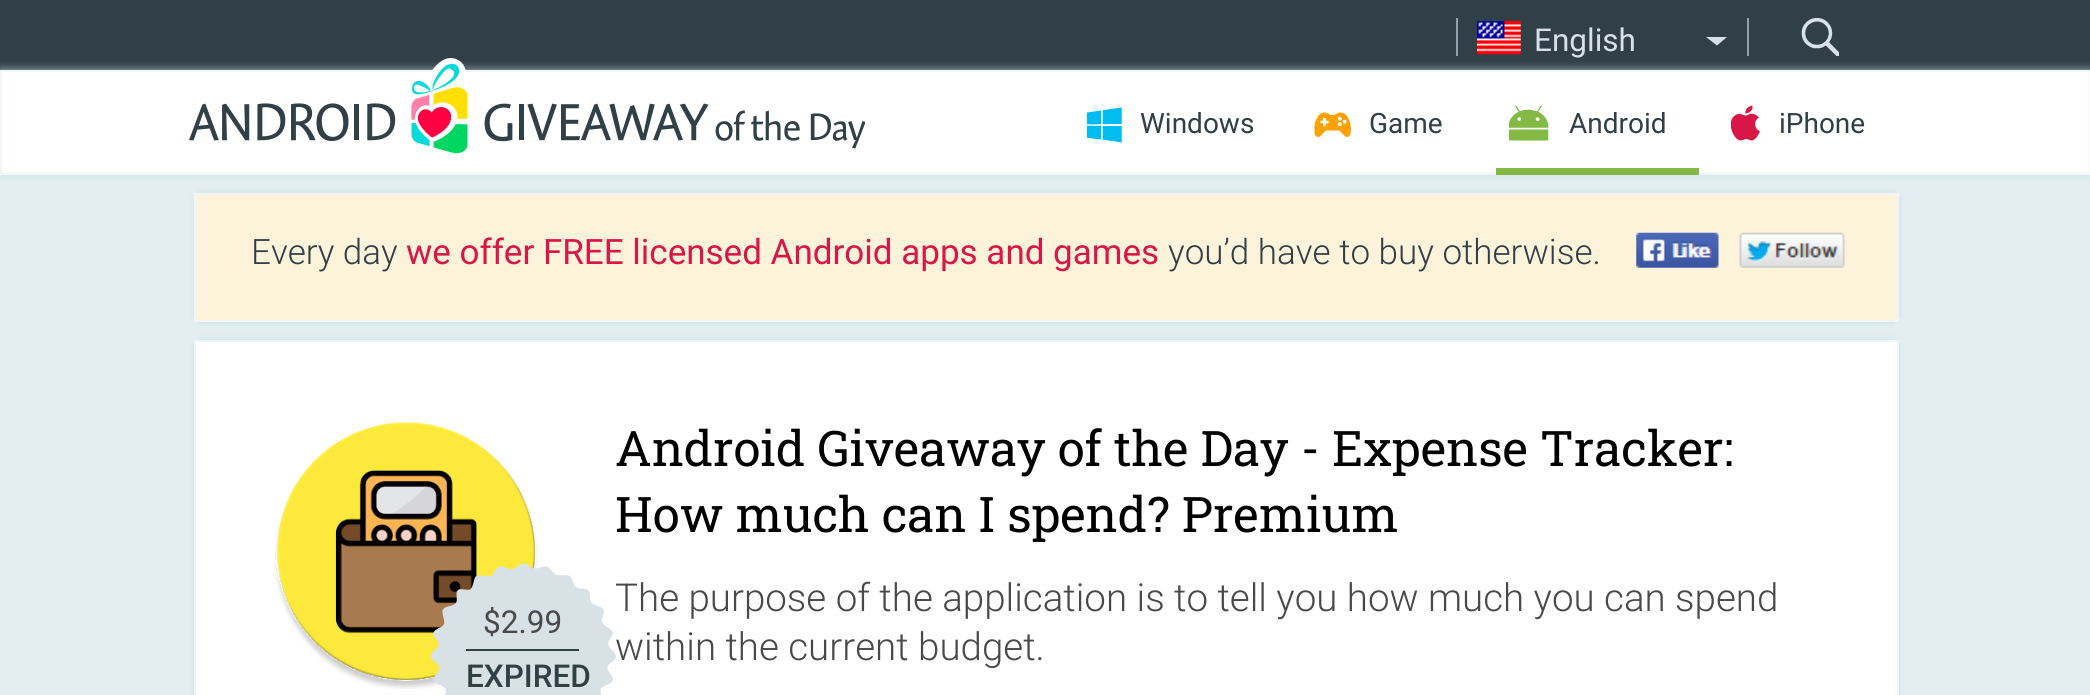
import math
import cairocffi as cairo

surface = cairo.ImageSurface(cairo.FORMAT_RGB24, 2090, 695)
ctx = cairo.Context(surface)
options = cairo.FontOptions()
options.set_hint_metrics(cairo.HINT_METRICS_OFF)
options.set_hint_style(cairo.HINT_STYLE_NONE)
ctx.set_font_options(options)
ctx.set_miter_limit(4)


def rgb(r, g, b):
    ctx.set_source_rgb(r / 255, g / 255, b / 255)


def face(family, size, italic, bold):
    ctx.select_font_face(family, cairo.FONT_SLANT_ITALIC if italic else cairo.FONT_SLANT_NORMAL, cairo.FONT_WEIGHT_BOLD if bold else cairo.FONT_WEIGHT_NORMAL)
    ctx.set_font_size(size)


def label(x, y, s):
    ctx.move_to(x, y)
    ctx.show_text(s)


def rect(x, y, w, h):
    ctx.rectangle(x, y, w, h)
    ctx.fill()


def rrect(x, y, w, h, r):
    ctx.new_sub_path()
    for i, (u, v) in enumerate([(x + w - r, y + h - r), (x + r, y + h - r), (x + r, y + r), (x + w - r, y + r)]):
        ctx.arc(u, v, r, i * math.pi / 2, (i + 1) * math.pi / 2)
    ctx.close_path()


def soft_shadow(x, y, w, h, r, blur, alpha):
    ctx.push_group_with_content(cairo.CONTENT_ALPHA)
    ctx.set_operator(cairo.OPERATOR_SOURCE)
    for i in range(15, -16, -2):
        e = blur * i / 6
        if min(w, h) + 2 * e > 0:
            ctx.set_source_rgba(0, 0, 0, alpha * math.erfc((i - 1) / 8.5) / 2)
            rrect(x - e, y - e, w + 2 * e, h + 2 * e, max(0, min(r + e + blur * .6, min(w, h) / 2 + e)))
            ctx.fill()
    ctx.mask(ctx.pop_group())


def image(path, x, y, w, h):
    ctx.save()
    ctx.set_source_surface(cairo.ImageSurface.create_from_png(path), x, y)
    ctx.rectangle(x, y, w, h)
    ctx.fill()
    ctx.restore()


rgb(228, 238, 242)
ctx.paint()
rgb(49, 64, 70)
rect(0, 0, 2090, 70)
rgb(199, 222, 228)
soft_shadow(0, 70, 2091, 105, 0, 4.5, 0.8)
rgb(146, 162, 168)
rect(1456, 18, 2, 38)
image('image0.png', 1477, 21, 44, 34)
face('Roboto', 31.5, 0, 0)
rgb(215, 225, 233)
label(1534, 51, 'English')
ctx.new_path()
ctx.move_to(1706, 37)
ctx.line_to(1727, 37)
ctx.line_to(1717, 45.5)
ctx.close_path()
ctx.fill()
rgb(146, 162, 168)
rect(1747, 18, 2, 38)
image('image1.png', 1801, 18, 38, 38)
rgb(255, 255, 255)
ctx.rectangle(1, 71, 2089, 103)
ctx.fill_preserve()
rgb(240, 246, 248)
ctx.stroke()
image('image2.png', 189, 58, 676, 96)
image('image3.png', 1087, 107, 35, 36)
face('Roboto', 28, 0, 0)
rgb(48, 64, 70)
label(1140, 133, 'Windows')
image('image4.png', 1314, 112, 37, 25)
label(1369, 133, 'Game')
image('image5.png', 1509, 105, 40, 36)
label(1569, 133, 'Android')
rgb(131, 185, 68)
rect(1496, 168, 203, 7)
image('image6.png', 1731, 105, 29, 36)
rgb(48, 64, 70)
label(1779, 133, 'iPhone')
rgb(199, 222, 228)
soft_shadow(193, 198, 1694, 119, 0, 2.5, 0.6)
soft_shadow(200, 205, 1694, 119, 0, 2.5, 0.6)
soft_shadow(207, 198, 1694, 119, 0, 2.5, 0.6)
soft_shadow(200, 191, 1694, 119, 0, 2.5, 0.6)
rgb(253, 243, 219)
ctx.rectangle(195, 194, 1703, 127)
ctx.fill_preserve()
rgb(240, 246, 248)
ctx.stroke()
face('Roboto Light', 35, 0, 0)
rgb(48, 64, 70)
label(251, 264, 'Every day')
face('Roboto', 35, 0, 0)
rgb(217, 23, 70)
label(406, 264, 'we offer FREE licensed Android apps and games')
face('Roboto Light', 35, 0, 0)
rgb(48, 64, 70)
label(1168, 264, 'you’d have to buy otherwise.')
image('image7.png', 1636, 232, 83, 36)
image('image8.png', 1739, 232, 106, 36)
rgb(199, 222, 228)
soft_shadow(193, 345, 1694, 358, 0, 2.5, 0.6)
soft_shadow(207, 345, 1694, 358, 0, 2.5, 0.6)
soft_shadow(200, 338, 1694, 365, 0, 2.5, 0.6)
rgb(255, 255, 255)
rect(196, 342, 1701, 353)
rgb(240, 246, 248)
rect(194, 340, 1705, 2)
rect(1897, 340, 2, 355)
rect(194, 340, 2, 355)
image('image9.png', 274, 422, 264, 267)
image('image10.png', 431, 563, 185, 132)
face('Roboto', 31.5, 0, 0)
rgb(73, 73, 73)
label(483, 633, '$2.99')
rgb(49, 64, 70)
rect(466, 649, 113, 2)
face('Roboto Medium', 31.5, 0, 0)
rgb(48, 64, 70)
label(466, 687, 'EXPIRED')
face('Roboto Slab', 49, 0, 0)
rgb(0, 0, 0)
label(615, 466, 'Android Giveaway of the Day - Expense Tracker:')
label(615, 532, 'How much can I spend? Premium')
face('Roboto Light', 38.5, 0, 0)
rgb(73, 73, 73)
label(615, 611, 'The purpose of the application is to tell you how much you can spend')
label(615, 660, 'within the current budget.')
surface.write_to_png('render.png')
